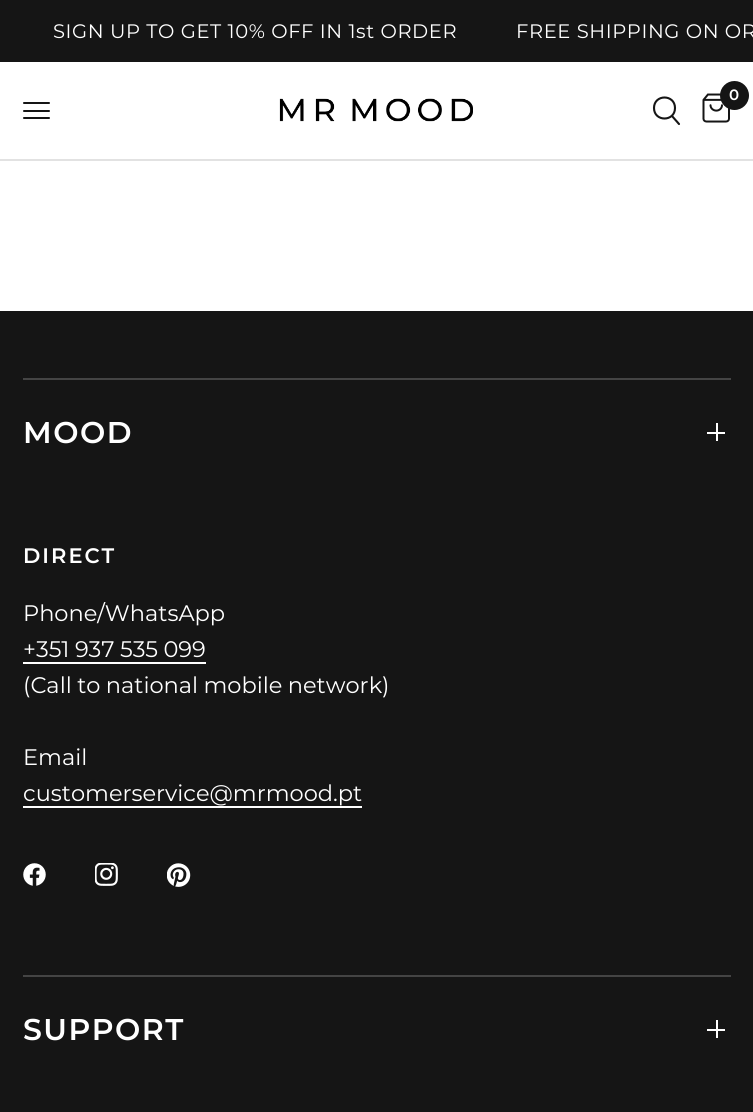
import math
import cairocffi as cairo

surface = cairo.ImageSurface(cairo.FORMAT_RGB24, 753, 1112)
ctx = cairo.Context(surface)
options = cairo.FontOptions()
options.set_hint_metrics(cairo.HINT_METRICS_OFF)
options.set_hint_style(cairo.HINT_STYLE_NONE)
ctx.set_font_options(options)
ctx.set_miter_limit(4)


def rgb(r, g, b):
    ctx.set_source_rgb(r / 255, g / 255, b / 255)


def face(family, size, italic, bold):
    ctx.select_font_face(family, cairo.FONT_SLANT_ITALIC if italic else cairo.FONT_SLANT_NORMAL, cairo.FONT_WEIGHT_BOLD if bold else cairo.FONT_WEIGHT_NORMAL)
    ctx.set_font_size(size)


def label(x, y, s):
    ctx.move_to(x, y)
    ctx.show_text(s)


def tracked(x, y, s, letter, word):
    ctx.move_to(x, y)
    for ch in s:
        ctx.show_text(ch)
        ctx.rel_move_to(letter + word * (ch == ' '), 0)


def rect(x, y, w, h):
    ctx.rectangle(x, y, w, h)
    ctx.fill()


def rrect(x, y, w, h, r):
    ctx.new_sub_path()
    for i, (u, v) in enumerate([(x + w - r, y + h - r), (x + r, y + h - r), (x + r, y + r), (x + w - r, y + r)]):
        ctx.arc(u, v, r, i * math.pi / 2, (i + 1) * math.pi / 2)
    ctx.close_path()


def image(path, x, y, w, h):
    ctx.save()
    ctx.set_source_surface(cairo.ImageSurface.create_from_png(path), x, y)
    ctx.rectangle(x, y, w, h)
    ctx.fill()
    ctx.restore()


rgb(255, 255, 255)
ctx.paint()
rgb(21, 21, 21)
rect(0, 0, 753, 62)
face('Montserrat', 19.5, 0, 0)
rgb(255, 255, 255)
tracked(53, 38, 'SIGN UP TO GET 10% OFF IN 1st ORDER', 0.6, 0)
tracked(516, 38, 'FREE SHIPPING ON OR', 0.6, 0)
rgb(226, 226, 226)
rect(0, 159, 753, 2)
ctx.new_path()
ctx.move_to(672, 116)
ctx.line_to(679, 124)
ctx.move_to(675, 108)
ctx.curve_to(675, 122, 654, 122, 654, 108)
ctx.curve_to(654, 94, 675, 94, 675, 108)
ctx.close_path()
rgb(21, 21, 21)
ctx.set_line_width(2.1)
ctx.set_line_cap(cairo.LINE_CAP_ROUND)
ctx.set_line_join(cairo.LINE_JOIN_ROUND)
ctx.stroke()
image('image0.png', 702, 93, 28, 30)
ctx.arc(734.5, 95.5, 14.5, 0, 2 * math.pi)
ctx.fill()
face('Montserrat SemiBold', 15, 0, 0)
rgb(255, 255, 255)
label(729, 100, '0')
rgb(21, 21, 21)
rrect(23, 102, 27, 2, 1)
ctx.fill()
rrect(23, 110, 27, 2, 1)
ctx.fill()
rrect(23, 117, 27, 2, 1)
ctx.fill()
image('image1.png', 279, 98, 194, 24)
rect(0, 311, 753, 801)
rgb(68, 68, 68)
rect(23, 378, 708, 2)
face('Montserrat SemiBold', 30, 0, 0)
rgb(255, 255, 255)
tracked(23, 443, 'MOOD', 1.5, 0)
rect(716, 423, 2, 18)
rect(707, 432, 18, 2)
face('Montserrat SemiBold', 21, 0, 0)
tracked(23, 563, 'DIRECT', 2, 0)
face('Montserrat', 22.5, 0, 0)
label(23, 621, 'Phone/WhatsApp')
tracked(23, 657, '+351 937 535 099', 0, -0.5)
rect(23, 662, 183, 2)
tracked(23, 693, '(Call to national mobile network)', 0, -0.5)
label(23, 765, 'Email')
label(23, 801, 'customerservice@mrmood.pt')
rect(23, 806, 339, 2)
image('image2.png', 23, 863, 23, 23)
image('image3.png', 95, 863, 23, 23)
image('image4.png', 167, 863, 24, 24)
rgb(68, 68, 68)
rect(23, 975, 708, 2)
face('Montserrat SemiBold', 30, 0, 0)
rgb(255, 255, 255)
tracked(23, 1040, 'SUPPORT', 1.5, 0)
rect(716, 1020, 2, 18)
rect(707, 1029, 18, 2)
surface.write_to_png('render.png')
